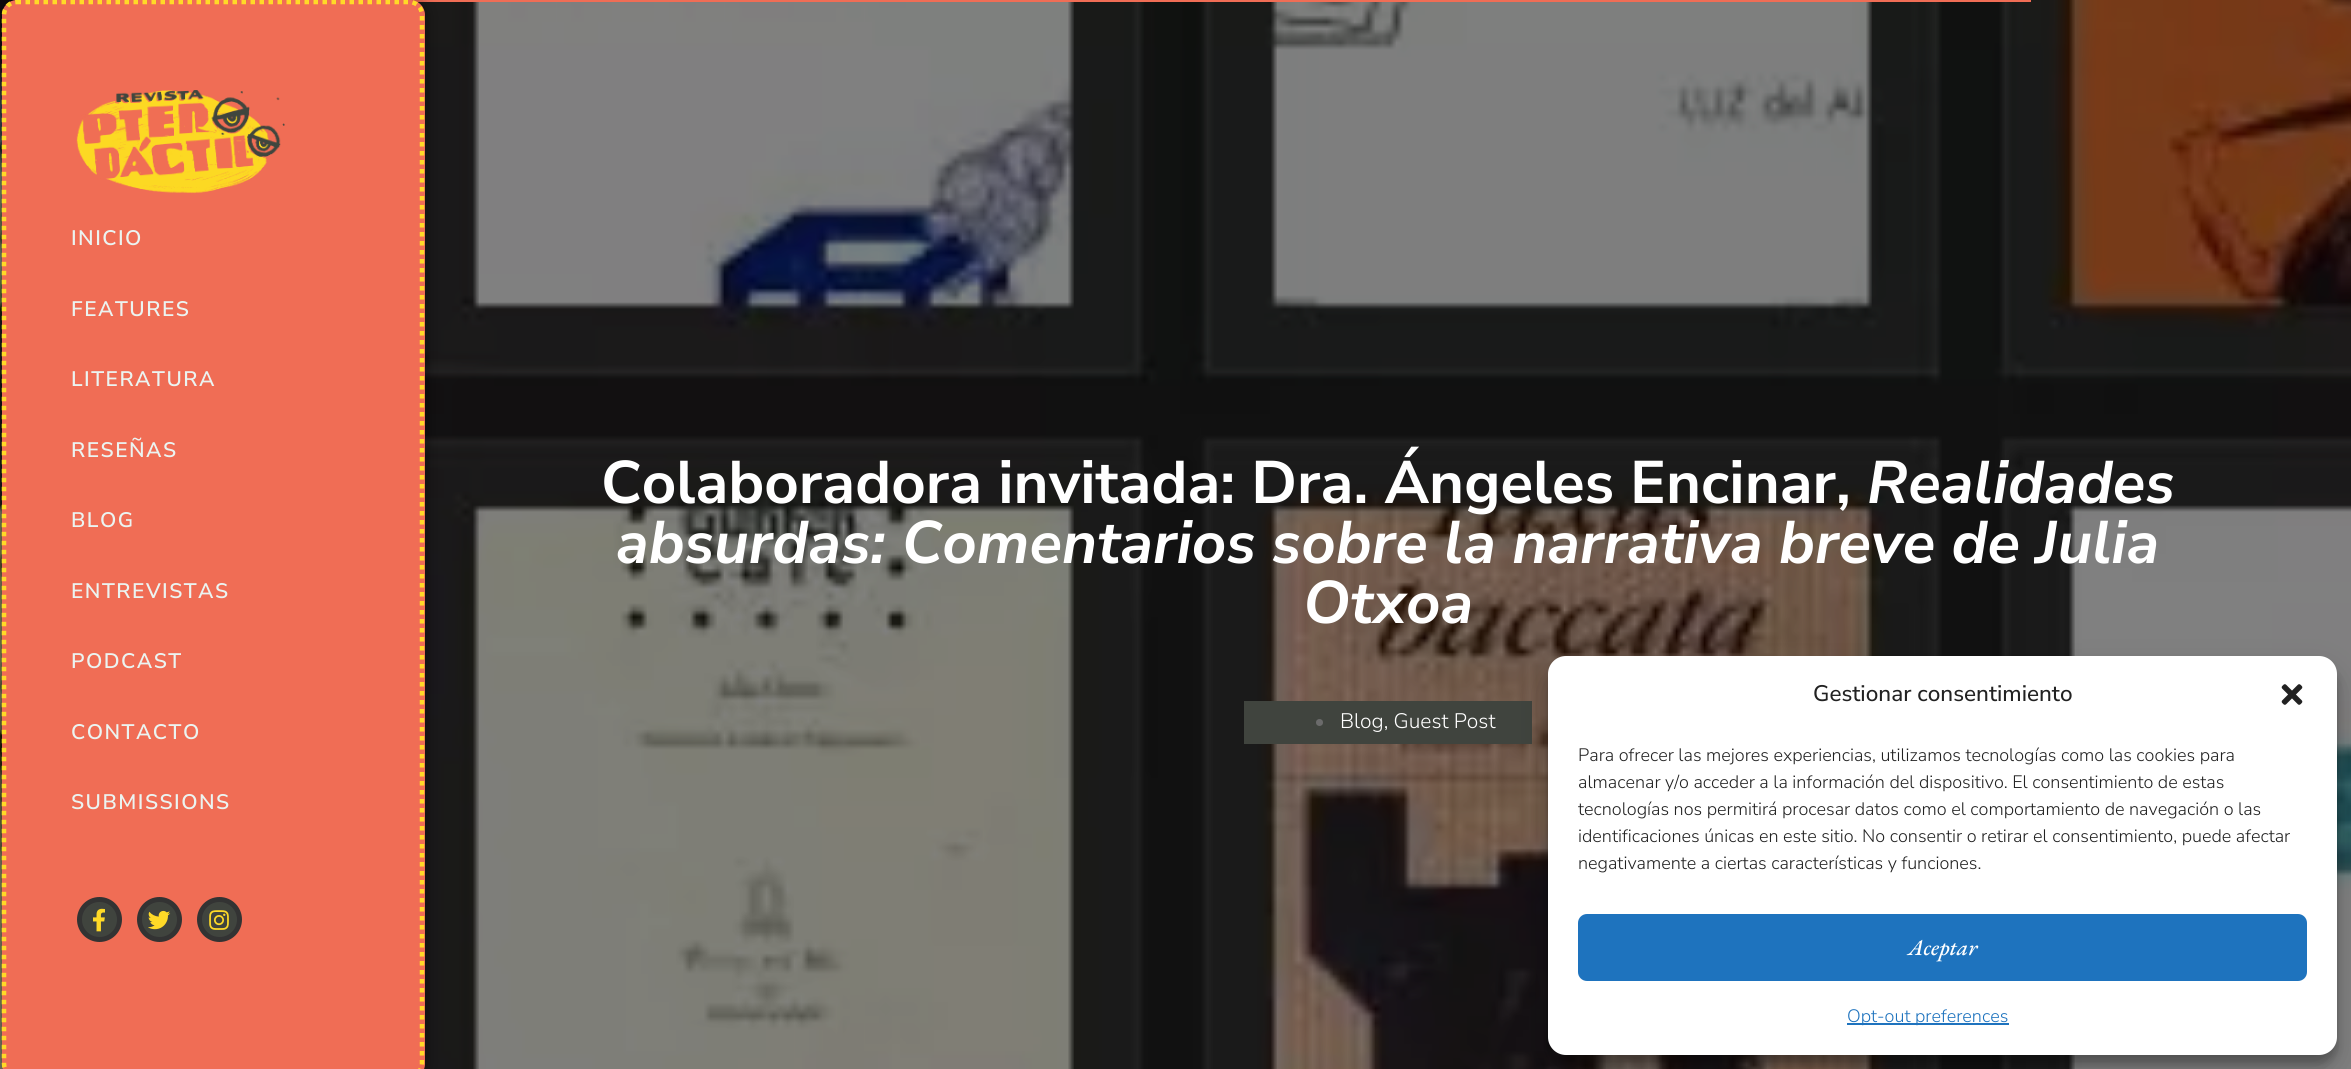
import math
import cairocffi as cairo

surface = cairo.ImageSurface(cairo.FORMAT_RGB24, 2351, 1069)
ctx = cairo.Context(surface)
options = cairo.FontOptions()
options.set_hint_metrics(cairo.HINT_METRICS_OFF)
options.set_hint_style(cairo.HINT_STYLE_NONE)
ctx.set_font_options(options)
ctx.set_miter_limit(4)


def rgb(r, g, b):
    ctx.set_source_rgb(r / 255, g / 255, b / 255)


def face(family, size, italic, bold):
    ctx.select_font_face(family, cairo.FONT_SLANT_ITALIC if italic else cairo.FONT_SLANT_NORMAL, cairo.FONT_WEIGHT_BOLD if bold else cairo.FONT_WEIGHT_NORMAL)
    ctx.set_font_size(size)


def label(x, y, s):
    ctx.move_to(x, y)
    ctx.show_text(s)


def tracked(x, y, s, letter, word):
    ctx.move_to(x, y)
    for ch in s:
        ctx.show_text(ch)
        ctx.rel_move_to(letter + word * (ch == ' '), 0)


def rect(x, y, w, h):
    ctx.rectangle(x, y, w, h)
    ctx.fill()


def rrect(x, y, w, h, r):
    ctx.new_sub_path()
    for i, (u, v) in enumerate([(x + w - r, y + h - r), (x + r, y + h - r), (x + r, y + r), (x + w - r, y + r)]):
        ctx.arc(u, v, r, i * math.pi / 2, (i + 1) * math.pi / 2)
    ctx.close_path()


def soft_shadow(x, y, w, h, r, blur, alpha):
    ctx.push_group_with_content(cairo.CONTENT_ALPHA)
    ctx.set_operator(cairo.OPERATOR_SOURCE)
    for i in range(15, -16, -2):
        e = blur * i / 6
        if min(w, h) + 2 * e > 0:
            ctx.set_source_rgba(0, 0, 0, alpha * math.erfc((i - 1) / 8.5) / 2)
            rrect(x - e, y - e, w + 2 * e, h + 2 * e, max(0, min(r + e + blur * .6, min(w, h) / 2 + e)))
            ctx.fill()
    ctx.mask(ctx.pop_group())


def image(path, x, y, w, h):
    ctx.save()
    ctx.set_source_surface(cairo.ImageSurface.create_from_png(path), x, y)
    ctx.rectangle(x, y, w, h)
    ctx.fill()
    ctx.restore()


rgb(255, 255, 255)
ctx.paint()
image('image4.png', 0, 0, 2351, 1069)
rgb(240, 109, 85)
rect(410, 0, 1621, 2)
rgb(0, 0, 0)
soft_shadow(2, 0, 423, 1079, 15, 7.5, 0.5)
rgb(240, 109, 85)
rrect(2, 0, 423, 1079, 15)
ctx.fill()
ctx.new_path()
ctx.move_to(16.5, 2)
ctx.line_to(409.5, 2)
ctx.curve_to(416.5, 2, 422, 8, 422, 15)
ctx.line_to(422, 1063.5)
ctx.curve_to(422, 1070.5, 416.5, 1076, 409.5, 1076)
ctx.line_to(16.5, 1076)
ctx.curve_to(9.5, 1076, 4, 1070.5, 4, 1063.5)
ctx.line_to(4, 15)
ctx.curve_to(4, 8, 9.5, 2, 16.5, 2)
ctx.close_path()
rgb(255, 218, 39)
ctx.set_line_width(4.5)
ctx.set_dash([4.5, 4.5])
ctx.stroke()
image('image0.png', 76, 90, 209, 104)
face('Nunito Sans SemiBold', 21, 0, 0)
rgb(235, 244, 241)
tracked(71, 245, 'INICIO', 1.5, 0)
tracked(71, 316, 'FEATURES', 1.5, 0)
tracked(71, 386, 'LITERATURA', 1.5, 0)
tracked(71, 457, 'RESEÑAS', 1.5, 0)
tracked(71, 527, 'BLOG', 1.5, 0)
tracked(71, 598, 'ENTREVISTAS', 1.5, 0)
tracked(71, 668, 'PODCAST', 1.5, 0)
tracked(71, 739, 'CONTACTO', 1.5, 0)
tracked(71, 809, 'SUBMISSIONS', 1.5, 0)
rgb(64, 68, 62)
ctx.new_path()
ctx.arc(99.5, 919.5, 20, 0, 2 * math.pi)
ctx.fill_preserve()
rgb(51, 51, 51)
ctx.set_line_width(5)
ctx.set_dash([])
ctx.stroke()
image('image1.png', 93, 908, 12, 24)
rgb(64, 68, 62)
ctx.arc(159.5, 919.5, 20, 0, 2 * math.pi)
ctx.fill_preserve()
rgb(51, 51, 51)
ctx.stroke()
image('image2.png', 148, 910, 23, 20)
rgb(64, 68, 62)
ctx.arc(219.5, 919.5, 20, 0, 2 * math.pi)
ctx.fill_preserve()
rgb(51, 51, 51)
ctx.stroke()
image('image3.png', 209, 910, 20, 20)
face('Nunito Sans', 60, 0, 1)
rgb(255, 255, 255)
label(601, 503, 'Colaboradora invitada: Dra. Ángeles Encinar,')
face('Nunito Sans', 60, 1, 1)
label(1867, 503, 'Realidades')
label(616, 563, 'absurdas: Comentarios sobre la narrativa breve de Julia')
label(1303, 623, 'Otxoa')
rgb(64, 68, 62)
rect(1244, 701, 288, 43)
rgb(107, 107, 107)
ctx.new_path()
ctx.arc(1319.5, 722.5, 3.5, 0, 2 * math.pi)
ctx.fill()
face('Nunito Sans Light', 21, 0, 0)
rgb(255, 255, 255)
label(1340, 728, 'Blog, Guest Post')
rgb(0, 0, 0)
soft_shadow(1548, 665, 789, 399, 18, 4.5, 0.23)
soft_shadow(1548, 671, 789, 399, 18, 15, 0.19)
rgb(255, 255, 255)
rrect(1548, 656, 789, 399, 18)
ctx.fill()
face('Nunito Sans Medium', 22.5, 0, 0)
rgb(34, 34, 34)
label(1813, 701, 'Gestionar consentimiento')
image('image5.png', 2281, 684, 22, 21)
face('Nunito Sans Light', 18, 0, 0)
label(1578, 761, 'Para ofrecer las mejores experiencias, utilizamos tecnologías como las cookies para')
label(1578, 788, 'almacenar y/o acceder a la información del dispositivo. El consentimiento de estas')
label(1578, 815, 'tecnologías nos permitirá procesar datos como el comportamiento de navegación o las')
label(1578, 842, 'identificaciones únicas en este sitio. No consentir o retirar el consentimiento, puede afectar')
label(1578, 869, 'negativamente a ciertas características y funciones.')
rgb(30, 115, 190)
rrect(1579, 915, 727, 65, 8)
ctx.fill_preserve()
ctx.set_line_width(2)
ctx.stroke()
face('EB Garamond Medium', 22.5, 1, 0)
rgb(255, 255, 255)
label(1908, 955, 'Aceptar')
rgb(30, 115, 190)
rect(1847, 1023, 162, 2)
face('Nunito Sans Light', 18, 0, 0)
label(1847, 1022, 'Opt-out preferences')
surface.write_to_png('render.png')
